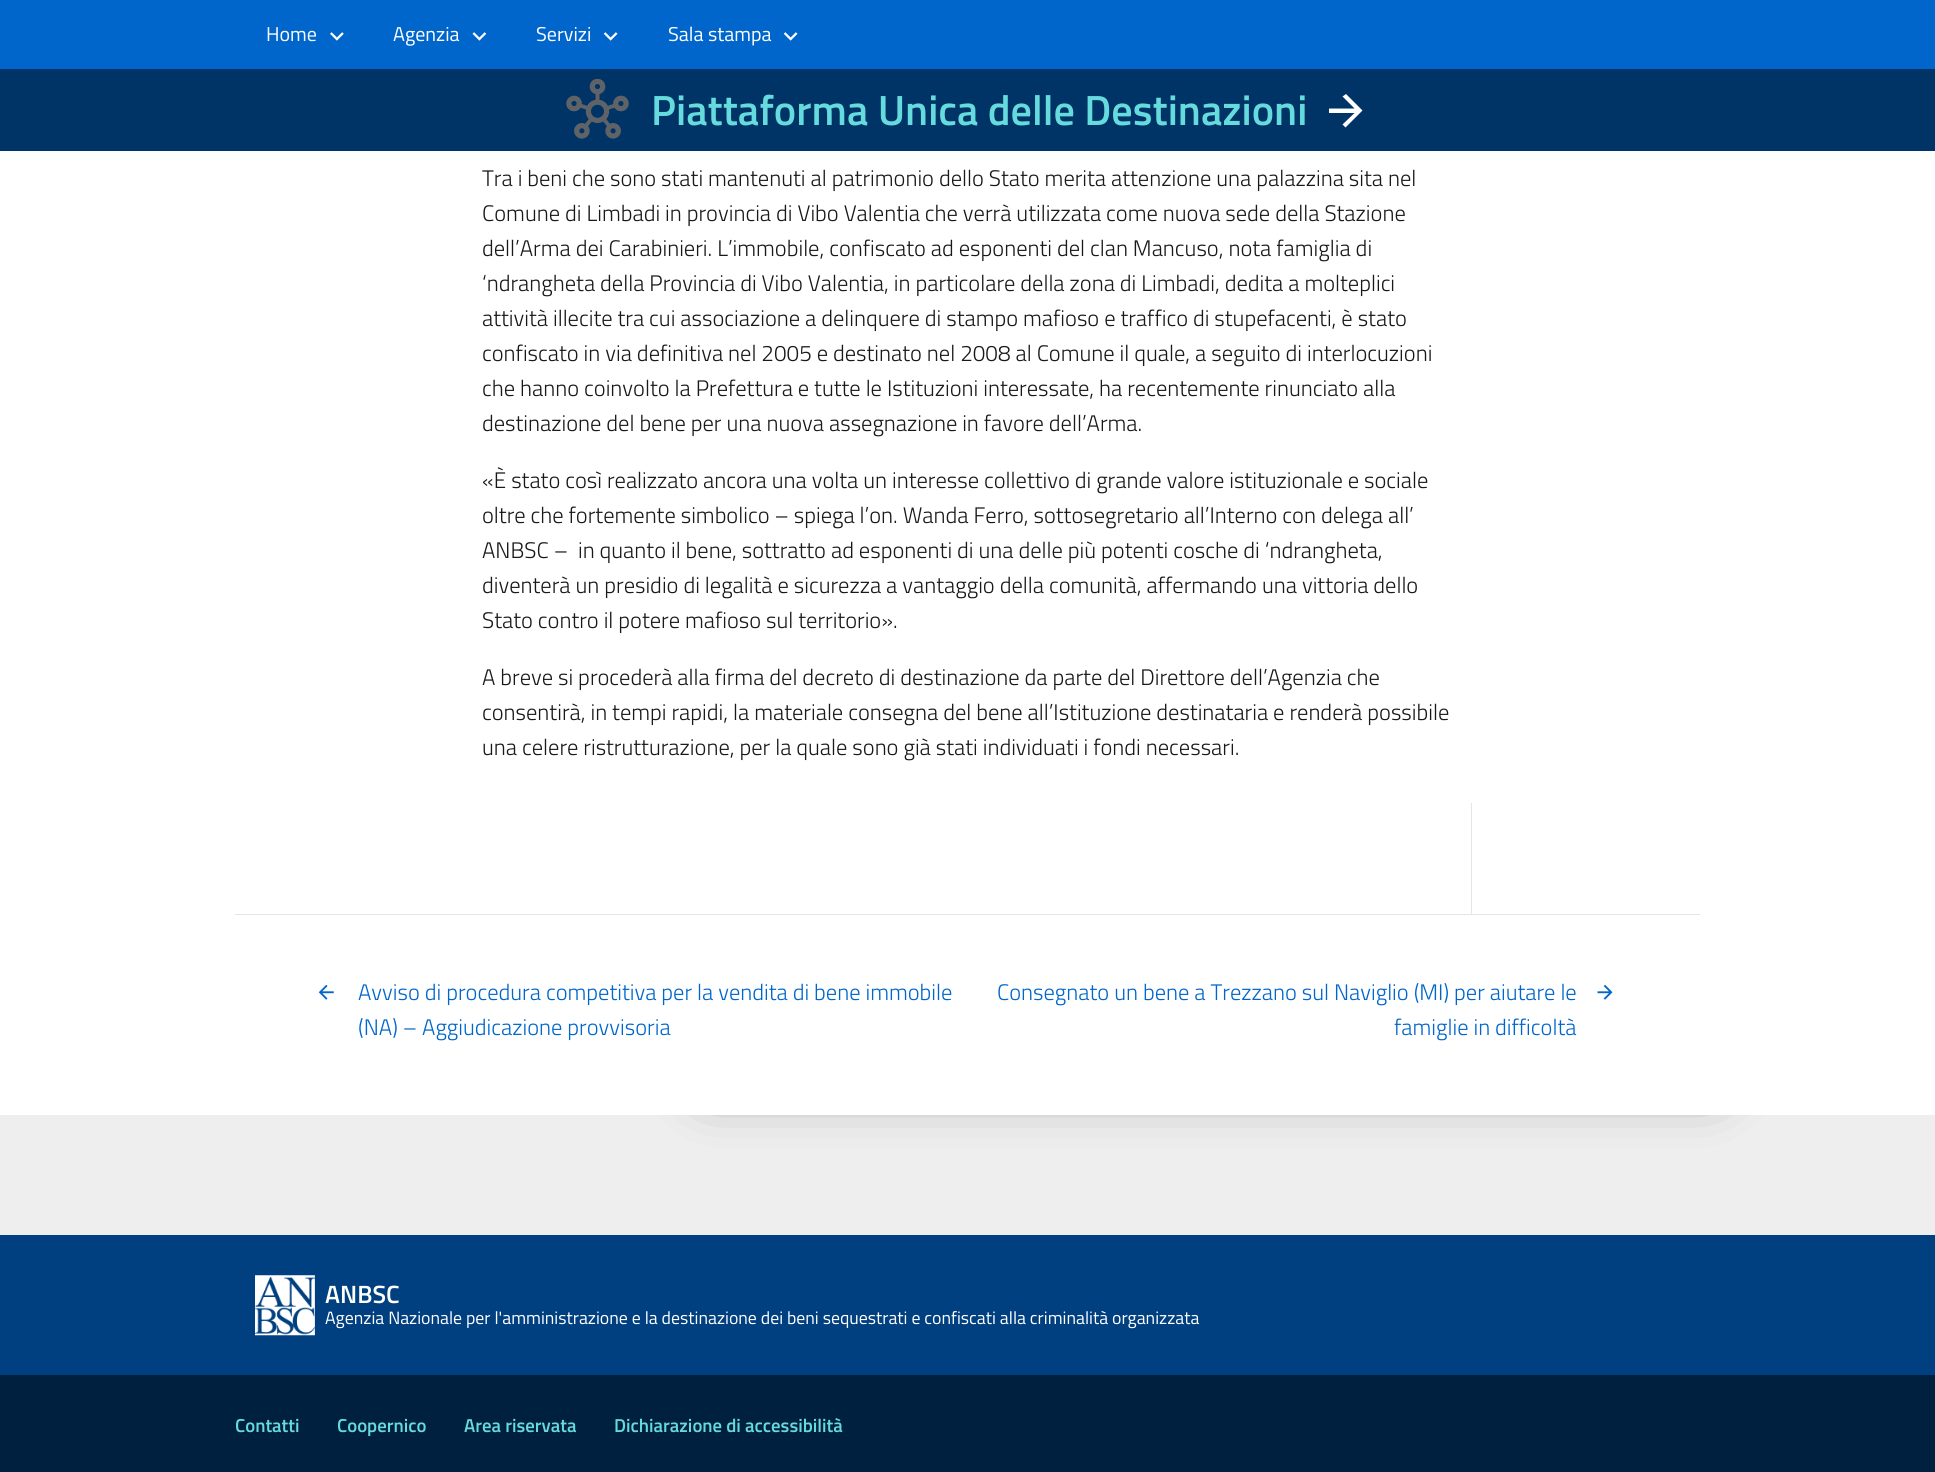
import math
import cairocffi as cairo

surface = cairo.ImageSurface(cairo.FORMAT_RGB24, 1935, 1472)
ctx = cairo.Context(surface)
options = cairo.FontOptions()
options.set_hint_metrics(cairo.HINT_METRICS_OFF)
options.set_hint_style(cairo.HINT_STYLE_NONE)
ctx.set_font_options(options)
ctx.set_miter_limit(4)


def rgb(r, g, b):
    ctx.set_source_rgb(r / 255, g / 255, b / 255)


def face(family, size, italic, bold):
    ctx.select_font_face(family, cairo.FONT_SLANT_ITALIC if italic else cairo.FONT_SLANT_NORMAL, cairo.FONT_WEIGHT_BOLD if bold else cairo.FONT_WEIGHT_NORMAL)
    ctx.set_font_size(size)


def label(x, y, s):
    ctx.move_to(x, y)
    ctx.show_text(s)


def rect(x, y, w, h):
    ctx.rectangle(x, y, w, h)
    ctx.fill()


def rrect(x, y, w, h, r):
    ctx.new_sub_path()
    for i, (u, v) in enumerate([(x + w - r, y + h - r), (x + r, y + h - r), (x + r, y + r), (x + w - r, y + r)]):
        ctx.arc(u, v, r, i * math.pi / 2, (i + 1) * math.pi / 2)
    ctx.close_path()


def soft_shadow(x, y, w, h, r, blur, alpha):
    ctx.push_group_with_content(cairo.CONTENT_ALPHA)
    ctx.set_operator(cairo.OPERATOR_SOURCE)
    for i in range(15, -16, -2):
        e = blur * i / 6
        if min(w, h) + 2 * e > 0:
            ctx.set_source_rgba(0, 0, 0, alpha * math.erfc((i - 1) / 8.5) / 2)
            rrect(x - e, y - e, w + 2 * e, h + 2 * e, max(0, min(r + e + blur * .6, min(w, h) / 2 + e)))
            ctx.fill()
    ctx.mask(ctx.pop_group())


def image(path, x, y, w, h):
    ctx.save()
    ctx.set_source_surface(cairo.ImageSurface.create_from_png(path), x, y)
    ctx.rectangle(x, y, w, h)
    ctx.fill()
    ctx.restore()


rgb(255, 255, 255)
ctx.paint()
rgb(0, 102, 204)
rect(0, 0, 1935, 69)
face('Titillium Web', 20, 0, 0)
rgb(255, 255, 255)
label(266, 41, 'Home')
image('image0.png', 330, 32, 14, 9)
label(393, 41, 'Agenzia')
image('image1.png', 472, 32, 15, 9)
label(536, 41, 'Servizi')
image('image2.png', 603, 32, 15, 9)
label(668, 41, 'Sala stampa')
image('image2.png', 783, 32, 15, 9)
rgb(0, 51, 102)
rect(0, 69, 1935, 82)
image('image3.png', 566, 79, 63, 60)
face('Titillium Web SemiBold', 42.25, 0, 0)
rgb(101, 219, 222)
label(651, 125, 'Piattaforma Unica delle Destinazioni')
rgb(255, 255, 255)
ctx.new_path()
ctx.move_to(1329, 113)
ctx.line_to(1354.5, 113)
ctx.line_to(1342.5, 124.5)
ctx.line_to(1345.5, 127.5)
ctx.line_to(1362.5, 110.5)
ctx.line_to(1346, 94)
ctx.line_to(1342.5, 96.5)
ctx.line_to(1354.5, 108.5)
ctx.line_to(1329, 108.5)
ctx.close_path()
ctx.fill()
face('Titillium Web Light', 22.5, 0, 0)
rgb(25, 25, 26)
label(482, 186, 'Tra i beni che sono stati mantenuti al patrimonio dello Stato merita attenzione una palazzina sita nel')
label(482, 221, 'Comune di Limbadi in provincia di Vibo Valentia che verrà utilizzata come nuova sede della Stazione')
label(482, 256, 'dell’Arma dei Carabinieri. L’immobile, confiscato ad esponenti del clan Mancuso, nota famiglia di')
label(482, 291, '‘ndrangheta della Provincia di Vibo Valentia, in particolare della zona di Limbadi, dedita a molteplici')
label(482, 326, 'attività illecite tra cui associazione a delinquere di stampo mafioso e traffico di stupefacenti, è stato')
label(482, 361, 'confiscato in via definitiva nel 2005 e destinato nel 2008 al Comune il quale, a seguito di interlocuzioni')
label(482, 396, 'che hanno coinvolto la Prefettura e tutte le Istituzioni interessate, ha recentemente rinunciato alla')
label(482, 431, 'destinazione del bene per una nuova assegnazione in favore dell’Arma.')
label(482, 488, '«È stato così realizzato ancora una volta un interesse collettivo di grande valore istituzionale e sociale')
label(482, 523, 'oltre che fortemente simbolico – spiega l’on. Wanda Ferro, sottosegretario all’Interno con delega all’')
label(482, 558, 'ANBSC –  in quanto il bene, sottratto ad esponenti di una delle più potenti cosche di ‘ndrangheta,')
label(482, 593, 'diventerà un presidio di legalità e sicurezza a vantaggio della comunità, affermando una vittoria dello')
label(482, 628, 'Stato contro il potere mafioso sul territorio».')
label(482, 685, 'A breve si procederà alla firma del decreto di destinazione da parte del Direttore dell’Agenzia che')
label(482, 720, 'consentirà, in tempi rapidi, la materiale consegna del bene all’Istituzione destinataria e renderà possibile')
label(482, 755, 'una celere ristrutturazione, per la quale sono già stati individuati i fondi necessari.')
rgb(229, 229, 229)
rect(1471, 803, 1, 112)
rect(235, 914, 1465, 1)
image('image4.png', 318, 984, 16, 16)
rgb(0, 102, 204)
label(358, 1000, 'Avviso di procedura competitiva per la vendita di bene immobile')
label(358, 1035, '(NA) – Aggiudicazione provvisoria')
label(997, 1000, 'Consegnato un bene a Trezzano sul Naviglio (MI) per aiutare le')
label(1394, 1035, 'famiglie in difficoltà')
image('image5.png', 1597, 984, 16, 16)
rgb(238, 238, 238)
rect(0, 1115, 1935, 120)
ctx.save()
ctx.rectangle(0, 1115, 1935, 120)
ctx.clip()
rgb(0, 0, 0)
soft_shadow(714, 1046, 992, 25, 0, 31, 1)
ctx.restore()
rgb(0, 64, 128)
rect(0, 1235, 1935, 140)
image('image6.png', 255, 1275, 60, 61)
face('Titillium Web SemiBold', 25, 0, 0)
rgb(255, 255, 255)
label(325, 1303, 'ANBSC')
face('Titillium Web', 17.8, 0, 0)
label(325, 1324, 'Agenzia Nazionale per l\'amministrazione e la destinazione dei beni sequestrati e confiscati alla criminalità organizzata')
rgb(0, 32, 64)
rect(0, 1375, 1935, 97)
face('Titillium Web SemiBold', 18.75, 0, 0)
rgb(101, 219, 222)
label(235, 1432, 'Contatti')
label(337, 1432, 'Coopernico')
label(464, 1432, 'Area riservata')
label(614, 1432, 'Dichiarazione di accessibilità')
surface.write_to_png('render.png')
